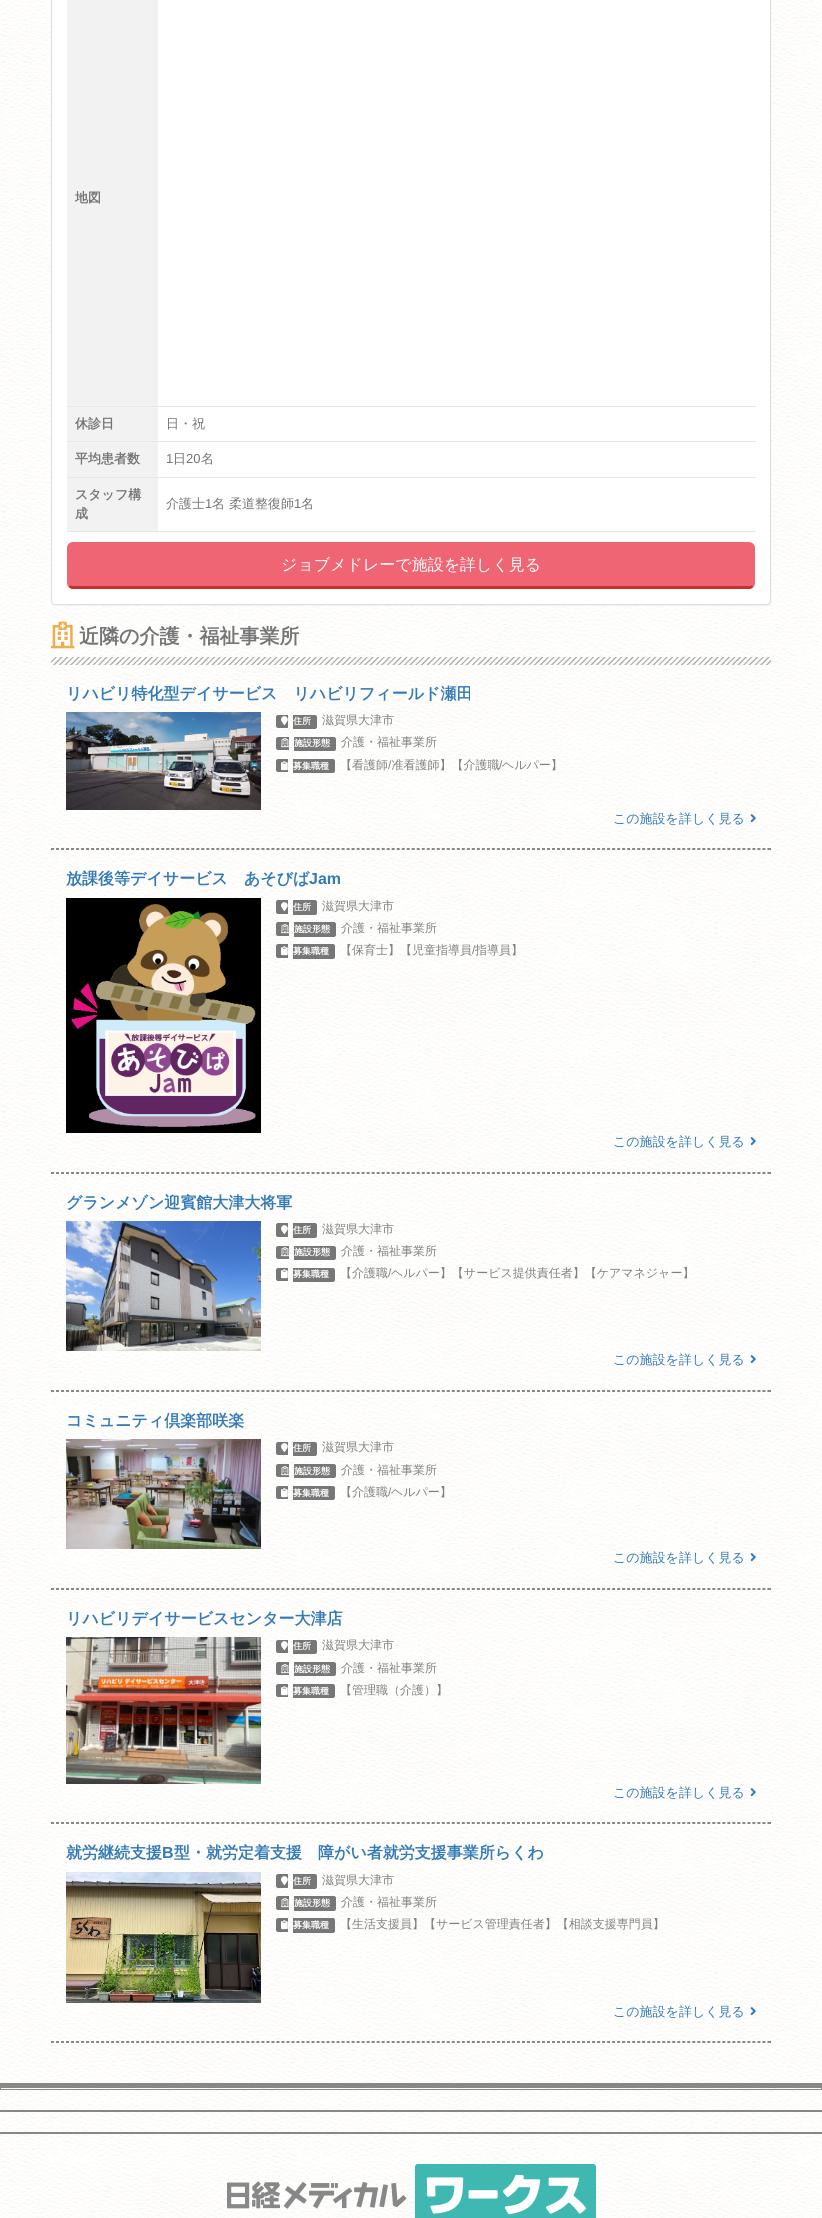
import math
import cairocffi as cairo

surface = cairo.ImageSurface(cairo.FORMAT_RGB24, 822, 2218)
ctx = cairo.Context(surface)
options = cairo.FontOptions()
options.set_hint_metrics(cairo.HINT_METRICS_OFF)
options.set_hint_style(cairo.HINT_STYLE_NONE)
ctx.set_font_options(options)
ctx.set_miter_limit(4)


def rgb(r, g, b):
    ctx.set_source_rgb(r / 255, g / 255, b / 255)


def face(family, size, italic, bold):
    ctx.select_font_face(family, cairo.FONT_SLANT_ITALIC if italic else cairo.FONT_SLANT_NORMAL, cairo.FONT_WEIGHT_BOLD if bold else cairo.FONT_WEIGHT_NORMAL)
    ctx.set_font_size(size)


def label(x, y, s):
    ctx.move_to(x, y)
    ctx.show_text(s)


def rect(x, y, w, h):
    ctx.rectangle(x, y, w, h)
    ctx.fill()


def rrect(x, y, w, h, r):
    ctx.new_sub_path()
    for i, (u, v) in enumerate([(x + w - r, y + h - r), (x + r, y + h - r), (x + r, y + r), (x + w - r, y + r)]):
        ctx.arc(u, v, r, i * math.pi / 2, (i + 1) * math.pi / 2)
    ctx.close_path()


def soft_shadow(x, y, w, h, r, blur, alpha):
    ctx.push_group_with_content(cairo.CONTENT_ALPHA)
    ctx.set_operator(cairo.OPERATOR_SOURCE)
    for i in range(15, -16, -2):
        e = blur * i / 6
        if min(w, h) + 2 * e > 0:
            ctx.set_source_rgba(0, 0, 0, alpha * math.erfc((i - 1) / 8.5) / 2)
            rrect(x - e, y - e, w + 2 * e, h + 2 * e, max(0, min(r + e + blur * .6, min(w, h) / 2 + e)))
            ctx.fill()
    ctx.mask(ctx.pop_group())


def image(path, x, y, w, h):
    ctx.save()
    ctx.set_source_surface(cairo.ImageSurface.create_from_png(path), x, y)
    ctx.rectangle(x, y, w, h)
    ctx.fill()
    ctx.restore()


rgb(255, 255, 255)
ctx.paint()
image('image0.png', 0, 0, 822, 2218)
rgb(0, 0, 0)
soft_shadow(51, -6, 720, 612, 4, 0.5, 0.05)
rgb(255, 255, 255)
rrect(51.5, -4.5, 719, 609, 3.5)
ctx.fill_preserve()
rgb(221, 221, 221)
ctx.set_line_width(1)
ctx.stroke()
rgb(242, 242, 242)
rect(67, 0, 91, 406)
face('WenQuanYi Zen Hei', 13, 0, 1)
rgb(117, 117, 117)
label(75, 202, '地図')
rgb(230, 230, 230)
rect(67, 406, 689, 1)
rgb(242, 242, 242)
rect(67, 407, 91, 34)
rgb(117, 117, 117)
label(75, 428, '休診日')
rgb(230, 230, 230)
rect(67, 441, 689, 1)
face('WenQuanYi Zen Hei Medium', 13, 0, 0)
rgb(117, 117, 117)
label(166, 428, '日・祝')
rgb(242, 242, 242)
rect(67, 442, 91, 35)
face('WenQuanYi Zen Hei', 13, 0, 1)
rgb(117, 117, 117)
label(75, 463, '平均患者数')
rgb(230, 230, 230)
rect(67, 477, 689, 1)
face('Liberation Sans', 13, 0, 0)
rgb(117, 117, 117)
label(166, 463, '1')
face('WenQuanYi Zen Hei Medium', 13, 0, 0)
label(173, 463, '日')
face('Liberation Sans', 13, 0, 0)
label(186, 463, '20')
face('WenQuanYi Zen Hei Medium', 13, 0, 0)
label(201, 463, '名')
rgb(242, 242, 242)
rect(67, 478, 91, 53)
face('WenQuanYi Zen Hei', 13, 0, 1)
rgb(117, 117, 117)
label(75, 499, 'スタッフ構')
label(75, 518, '成')
rgb(230, 230, 230)
rect(67, 531, 689, 1)
face('WenQuanYi Zen Hei Medium', 13, 0, 0)
rgb(117, 117, 117)
label(166, 508, '介護士')
face('Liberation Sans', 13, 0, 0)
label(205, 508, '1')
face('WenQuanYi Zen Hei Medium', 13, 0, 0)
label(212, 508, '名 柔道整復師')
face('Liberation Sans', 13, 0, 0)
label(294, 508, '1')
face('WenQuanYi Zen Hei Medium', 13, 0, 0)
label(301, 508, '名')
rgb(240, 101, 115)
rrect(67, 542, 688, 47, 6)
ctx.fill()
rgb(201, 48, 44)
ctx.new_path()
ctx.move_to(73, 589)
ctx.line_to(749, 589)
ctx.curve_to(751, 589, 752, 588, 753, 587)
ctx.line_to(752, 585)
ctx.curve_to(751, 586, 750, 586, 749, 586)
ctx.line_to(73, 586)
ctx.curve_to(72, 586, 71, 586, 70, 585)
ctx.line_to(69, 587)
ctx.curve_to(70, 588, 71, 589, 73, 589)
ctx.close_path()
ctx.fill()
face('WenQuanYi Zen Hei Medium', 16, 0, 0)
rgb(255, 255, 255)
label(281, 570, 'ジョブメドレーで施設を詳しく見る')
image('image1.png', 51, 621, 24, 28)
face('WenQuanYi Zen Hei', 20, 0, 1)
rgb(117, 117, 117)
label(79, 643, '近隣の介護・福祉事業所')
image('image2.png', 51, 657, 720, 8)
face('WenQuanYi Zen Hei', 16, 0, 1)
rgb(51, 122, 183)
label(66, 699, 'リハビリ特化型デイサービス　リハビリフィールド瀬田')
image('image3.png', 66, 712, 195, 98)
rgb(119, 119, 119)
ctx.new_path()
ctx.move_to(278, 715)
ctx.line_to(288, 715)
ctx.line_to(288, 728)
ctx.line_to(278, 728)
ctx.curve_to(277, 728, 276, 727, 276, 726)
ctx.line_to(276, 717)
ctx.curve_to(276, 716, 277, 715, 278, 715)
ctx.close_path()
ctx.fill()
ctx.new_path()
ctx.move_to(293, 715)
ctx.line_to(315, 715)
ctx.curve_to(316, 715, 317, 716, 317, 717)
ctx.line_to(317, 727)
ctx.curve_to(317, 728, 316, 729, 315, 729)
ctx.line_to(293, 729)
ctx.close_path()
ctx.fill()
image('image4.png', 281, 716, 7, 10)
face('WenQuanYi Zen Hei', 9, 0, 1)
rgb(255, 255, 255)
label(293, 724, '住所')
face('WenQuanYi Zen Hei Medium', 12, 0, 0)
rgb(128, 128, 128)
label(322, 724, '滋賀県大津市')
rgb(119, 119, 119)
ctx.new_path()
ctx.move_to(278, 737)
ctx.line_to(289, 737)
ctx.line_to(289, 750)
ctx.line_to(278, 750)
ctx.curve_to(277, 750, 276, 749, 276, 748)
ctx.line_to(276, 739)
ctx.curve_to(276, 738, 277, 737, 278, 737)
ctx.close_path()
ctx.fill()
ctx.new_path()
ctx.move_to(294, 737)
ctx.line_to(334, 737)
ctx.curve_to(335, 737, 336, 738, 336, 739)
ctx.line_to(336, 749)
ctx.curve_to(336, 750, 335, 751, 334, 751)
ctx.line_to(294, 751)
ctx.close_path()
ctx.fill()
image('image5.png', 281, 738, 8, 10)
face('WenQuanYi Zen Hei', 9, 0, 1)
rgb(255, 255, 255)
label(294, 746, '施設形態')
face('WenQuanYi Zen Hei Medium', 12, 0, 0)
rgb(128, 128, 128)
label(341, 746, '介護・福祉事業所')
label(340, 769, '【看護師 准看護師】【介護職')
face('Liberation Sans', 12, 0, 0)
label(499, 769, '/')
face('WenQuanYi Zen Hei Medium', 12, 0, 0)
label(502, 769, 'ヘルパー】')
rgb(119, 119, 119)
ctx.new_path()
ctx.move_to(278, 759)
ctx.line_to(288, 759)
ctx.line_to(288, 772)
ctx.line_to(278, 772)
ctx.curve_to(277, 772, 276, 771, 276, 770)
ctx.line_to(276, 761)
ctx.curve_to(276, 760, 277, 759, 278, 759)
ctx.close_path()
ctx.fill()
ctx.new_path()
ctx.move_to(293, 759)
ctx.line_to(333, 759)
ctx.curve_to(334, 759, 335, 760, 335, 761)
ctx.line_to(335, 771)
ctx.curve_to(335, 772, 334, 773, 333, 773)
ctx.line_to(293, 773)
ctx.close_path()
ctx.fill()
image('image6.png', 281, 761, 7, 10)
face('WenQuanYi Zen Hei', 9, 0, 1)
rgb(255, 255, 255)
label(293, 769, '募集職種')
face('Liberation Sans', 12, 0, 0)
rgb(128, 128, 128)
label(388, 769, '/')
face('WenQuanYi Zen Hei Medium', 13, 0, 0)
rgb(51, 122, 183)
label(613, 823, 'この施設を詳しく見る')
image('image7.png', 750, 814, 6, 9)
ctx.new_path()
ctx.move_to(51, 848.5)
ctx.line_to(771, 848.5)
rgb(136, 136, 136)
ctx.set_dash([3, 2.01])
ctx.stroke()
rect(770, 848, 1, 2)
ctx.new_path()
ctx.move_to(51, 849.5)
ctx.line_to(771, 849.5)
ctx.stroke()
face('WenQuanYi Zen Hei', 16, 0, 1)
rgb(51, 122, 183)
label(66, 884, '放課後等デイサービス　あそびば')
face('Liberation Sans', 16, 0, 1)
label(309, 884, 'Jam')
image('image8.png', 66, 898, 195, 235)
rgb(119, 119, 119)
ctx.new_path()
ctx.move_to(278, 900)
ctx.line_to(288, 900)
ctx.line_to(288, 914)
ctx.line_to(278, 914)
ctx.curve_to(277, 914, 276, 913, 276, 912)
ctx.line_to(276, 902)
ctx.curve_to(276, 901, 277, 900, 278, 900)
ctx.close_path()
ctx.fill()
ctx.new_path()
ctx.move_to(293, 900)
ctx.line_to(315, 900)
ctx.curve_to(316, 900, 317, 901, 317, 902)
ctx.line_to(317, 913)
ctx.curve_to(317, 914, 316, 915, 315, 915)
ctx.line_to(293, 915)
ctx.close_path()
ctx.fill()
image('image4.png', 281, 902, 7, 10)
face('WenQuanYi Zen Hei', 9, 0, 1)
rgb(255, 255, 255)
label(293, 910, '住所')
face('WenQuanYi Zen Hei Medium', 12, 0, 0)
rgb(128, 128, 128)
label(322, 910, '滋賀県大津市')
rgb(119, 119, 119)
ctx.new_path()
ctx.move_to(278, 922)
ctx.line_to(289, 922)
ctx.line_to(289, 936)
ctx.line_to(278, 936)
ctx.curve_to(277, 936, 276, 935, 276, 934)
ctx.line_to(276, 924)
ctx.curve_to(276, 923, 277, 922, 278, 922)
ctx.close_path()
ctx.fill()
ctx.new_path()
ctx.move_to(294, 922)
ctx.line_to(334, 922)
ctx.curve_to(335, 922, 336, 923, 336, 924)
ctx.line_to(336, 935)
ctx.curve_to(336, 936, 335, 937, 334, 937)
ctx.line_to(294, 937)
ctx.close_path()
ctx.fill()
image('image5.png', 281, 924, 8, 10)
face('WenQuanYi Zen Hei', 9, 0, 1)
rgb(255, 255, 255)
label(294, 932, '施設形態')
face('WenQuanYi Zen Hei Medium', 12, 0, 0)
rgb(128, 128, 128)
label(341, 932, '介護・福祉事業所')
rgb(119, 119, 119)
ctx.new_path()
ctx.move_to(278, 944)
ctx.line_to(288, 944)
ctx.line_to(288, 958)
ctx.line_to(278, 958)
ctx.curve_to(277, 958, 276, 957, 276, 956)
ctx.line_to(276, 946)
ctx.curve_to(276, 945, 277, 944, 278, 944)
ctx.close_path()
ctx.fill()
ctx.new_path()
ctx.move_to(293, 944)
ctx.line_to(333, 944)
ctx.curve_to(334, 944, 335, 945, 335, 946)
ctx.line_to(335, 957)
ctx.curve_to(335, 958, 334, 959, 333, 959)
ctx.line_to(293, 959)
ctx.close_path()
ctx.fill()
image('image6.png', 281, 946, 7, 10)
face('WenQuanYi Zen Hei', 9, 0, 1)
rgb(255, 255, 255)
label(293, 954, '募集職種')
face('WenQuanYi Zen Hei Medium', 12, 0, 0)
rgb(128, 128, 128)
label(340, 954, '【保育士】【児童指導員')
face('Liberation Sans', 12, 0, 0)
label(472, 954, '/')
face('WenQuanYi Zen Hei Medium', 12, 0, 0)
label(475, 954, '指導員】')
face('WenQuanYi Zen Hei Medium', 13, 0, 0)
rgb(51, 122, 183)
label(613, 1146, 'この施設を詳しく見る')
image('image9.png', 750, 1137, 6, 9)
ctx.new_path()
ctx.move_to(51, 1172.5)
ctx.line_to(771, 1172.5)
rgb(136, 136, 136)
ctx.stroke()
rect(770, 1172, 1, 2)
ctx.new_path()
ctx.move_to(51, 1173.5)
ctx.line_to(771, 1173.5)
ctx.stroke()
face('WenQuanYi Zen Hei', 16, 0, 1)
rgb(51, 122, 183)
label(66, 1208, 'グランメゾン迎賓館大津大将軍')
image('image10.png', 66, 1221, 195, 130)
rgb(119, 119, 119)
ctx.new_path()
ctx.move_to(278, 1223)
ctx.line_to(288, 1223)
ctx.line_to(288, 1237)
ctx.line_to(278, 1237)
ctx.curve_to(277, 1237, 276, 1236, 276, 1235)
ctx.line_to(276, 1225)
ctx.curve_to(276, 1224, 277, 1223, 278, 1223)
ctx.close_path()
ctx.fill()
ctx.new_path()
ctx.move_to(293, 1223)
ctx.line_to(315, 1223)
ctx.curve_to(316, 1223, 317, 1224, 317, 1225)
ctx.line_to(317, 1236)
ctx.curve_to(317, 1237, 316, 1238, 315, 1238)
ctx.line_to(293, 1238)
ctx.close_path()
ctx.fill()
image('image4.png', 281, 1225, 7, 10)
face('WenQuanYi Zen Hei', 9, 0, 1)
rgb(255, 255, 255)
label(293, 1233, '住所')
face('WenQuanYi Zen Hei Medium', 12, 0, 0)
rgb(128, 128, 128)
label(322, 1233, '滋賀県大津市')
rgb(119, 119, 119)
ctx.new_path()
ctx.move_to(278, 1246)
ctx.line_to(289, 1246)
ctx.line_to(289, 1259)
ctx.line_to(278, 1259)
ctx.curve_to(277, 1259, 276, 1258, 276, 1257)
ctx.line_to(276, 1248)
ctx.curve_to(276, 1247, 277, 1246, 278, 1246)
ctx.close_path()
ctx.fill()
ctx.new_path()
ctx.move_to(294, 1246)
ctx.line_to(334, 1246)
ctx.curve_to(335, 1246, 336, 1247, 336, 1248)
ctx.line_to(336, 1258)
ctx.curve_to(336, 1259, 335, 1260, 334, 1260)
ctx.line_to(294, 1260)
ctx.close_path()
ctx.fill()
image('image5.png', 281, 1247, 8, 10)
face('WenQuanYi Zen Hei', 9, 0, 1)
rgb(255, 255, 255)
label(294, 1255, '施設形態')
face('WenQuanYi Zen Hei Medium', 12, 0, 0)
rgb(128, 128, 128)
label(341, 1255, '介護・福祉事業所')
rgb(119, 119, 119)
ctx.new_path()
ctx.move_to(278, 1268)
ctx.line_to(288, 1268)
ctx.line_to(288, 1281)
ctx.line_to(278, 1281)
ctx.curve_to(277, 1281, 276, 1280, 276, 1279)
ctx.line_to(276, 1270)
ctx.curve_to(276, 1269, 277, 1268, 278, 1268)
ctx.close_path()
ctx.fill()
ctx.new_path()
ctx.move_to(293, 1268)
ctx.line_to(333, 1268)
ctx.curve_to(334, 1268, 335, 1269, 335, 1270)
ctx.line_to(335, 1280)
ctx.curve_to(335, 1281, 334, 1282, 333, 1282)
ctx.line_to(293, 1282)
ctx.close_path()
ctx.fill()
image('image6.png', 281, 1269, 7, 10)
face('WenQuanYi Zen Hei', 9, 0, 1)
rgb(255, 255, 255)
label(293, 1277, '募集職種')
face('WenQuanYi Zen Hei Medium', 12, 0, 0)
rgb(128, 128, 128)
label(340, 1277, '【介護職')
face('Liberation Sans', 12, 0, 0)
label(388, 1277, '/')
face('WenQuanYi Zen Hei Medium', 12, 0, 0)
label(391, 1277, 'ヘルパー】【サービス提供責任者】【ケアマネジャー】')
face('WenQuanYi Zen Hei Medium', 13, 0, 0)
rgb(51, 122, 183)
label(613, 1364, 'この施設を詳しく見る')
image('image11.png', 750, 1355, 6, 9)
ctx.new_path()
ctx.move_to(51, 1390.5)
ctx.line_to(771, 1390.5)
rgb(136, 136, 136)
ctx.stroke()
rect(770, 1390, 1, 2)
ctx.new_path()
ctx.move_to(51, 1391.5)
ctx.line_to(771, 1391.5)
ctx.stroke()
face('WenQuanYi Zen Hei', 16, 0, 1)
rgb(51, 122, 183)
label(66, 1426, 'コミュニティ倶楽部咲楽')
image('image12.png', 66, 1439, 195, 110)
rgb(119, 119, 119)
ctx.new_path()
ctx.move_to(278, 1442)
ctx.line_to(288, 1442)
ctx.line_to(288, 1455)
ctx.line_to(278, 1455)
ctx.curve_to(277, 1455, 276, 1454, 276, 1453)
ctx.line_to(276, 1444)
ctx.curve_to(276, 1443, 277, 1442, 278, 1442)
ctx.close_path()
ctx.fill()
ctx.new_path()
ctx.move_to(293, 1442)
ctx.line_to(315, 1442)
ctx.curve_to(316, 1442, 317, 1443, 317, 1444)
ctx.line_to(317, 1454)
ctx.curve_to(317, 1455, 316, 1456, 315, 1456)
ctx.line_to(293, 1456)
ctx.close_path()
ctx.fill()
image('image4.png', 281, 1443, 7, 10)
face('WenQuanYi Zen Hei', 9, 0, 1)
rgb(255, 255, 255)
label(293, 1451, '住所')
face('WenQuanYi Zen Hei Medium', 12, 0, 0)
rgb(128, 128, 128)
label(322, 1451, '滋賀県大津市')
rgb(119, 119, 119)
ctx.new_path()
ctx.move_to(278, 1464)
ctx.line_to(289, 1464)
ctx.line_to(289, 1477)
ctx.line_to(278, 1477)
ctx.curve_to(277, 1477, 276, 1476, 276, 1475)
ctx.line_to(276, 1466)
ctx.curve_to(276, 1465, 277, 1464, 278, 1464)
ctx.close_path()
ctx.fill()
ctx.new_path()
ctx.move_to(294, 1464)
ctx.line_to(334, 1464)
ctx.curve_to(335, 1464, 336, 1465, 336, 1466)
ctx.line_to(336, 1476)
ctx.curve_to(336, 1477, 335, 1478, 334, 1478)
ctx.line_to(294, 1478)
ctx.close_path()
ctx.fill()
image('image5.png', 281, 1466, 8, 10)
face('WenQuanYi Zen Hei', 9, 0, 1)
rgb(255, 255, 255)
label(294, 1474, '施設形態')
face('WenQuanYi Zen Hei Medium', 12, 0, 0)
rgb(128, 128, 128)
label(341, 1474, '介護・福祉事業所')
rgb(119, 119, 119)
ctx.new_path()
ctx.move_to(278, 1486)
ctx.line_to(288, 1486)
ctx.line_to(288, 1499)
ctx.line_to(278, 1499)
ctx.curve_to(277, 1499, 276, 1498, 276, 1497)
ctx.line_to(276, 1488)
ctx.curve_to(276, 1487, 277, 1486, 278, 1486)
ctx.close_path()
ctx.fill()
ctx.new_path()
ctx.move_to(293, 1486)
ctx.line_to(333, 1486)
ctx.curve_to(334, 1486, 335, 1487, 335, 1488)
ctx.line_to(335, 1498)
ctx.curve_to(335, 1499, 334, 1500, 333, 1500)
ctx.line_to(293, 1500)
ctx.close_path()
ctx.fill()
image('image6.png', 281, 1488, 7, 10)
face('WenQuanYi Zen Hei', 9, 0, 1)
rgb(255, 255, 255)
label(293, 1496, '募集職種')
face('WenQuanYi Zen Hei Medium', 12, 0, 0)
rgb(128, 128, 128)
label(340, 1496, '【介護職')
face('Liberation Sans', 12, 0, 0)
label(388, 1496, '/')
face('WenQuanYi Zen Hei Medium', 12, 0, 0)
label(391, 1496, 'ヘルパー】')
face('WenQuanYi Zen Hei Medium', 13, 0, 0)
rgb(51, 122, 183)
label(613, 1562, 'この施設を詳しく見る')
image('image13.png', 750, 1553, 6, 9)
ctx.new_path()
ctx.move_to(51, 1588.5)
ctx.line_to(771, 1588.5)
rgb(136, 136, 136)
ctx.stroke()
rect(770, 1588, 1, 2)
ctx.new_path()
ctx.move_to(51, 1589.5)
ctx.line_to(771, 1589.5)
ctx.stroke()
face('WenQuanYi Zen Hei', 16, 0, 1)
rgb(51, 122, 183)
label(66, 1624, 'リハビリデイサービスセンター大津店')
image('image14.png', 66, 1637, 195, 147)
rgb(119, 119, 119)
ctx.new_path()
ctx.move_to(278, 1640)
ctx.line_to(288, 1640)
ctx.line_to(288, 1653)
ctx.line_to(278, 1653)
ctx.curve_to(277, 1653, 276, 1652, 276, 1651)
ctx.line_to(276, 1642)
ctx.curve_to(276, 1641, 277, 1640, 278, 1640)
ctx.close_path()
ctx.fill()
ctx.new_path()
ctx.move_to(293, 1640)
ctx.line_to(315, 1640)
ctx.curve_to(316, 1640, 317, 1641, 317, 1642)
ctx.line_to(317, 1652)
ctx.curve_to(317, 1653, 316, 1654, 315, 1654)
ctx.line_to(293, 1654)
ctx.close_path()
ctx.fill()
image('image4.png', 281, 1641, 7, 10)
face('WenQuanYi Zen Hei', 9, 0, 1)
rgb(255, 255, 255)
label(293, 1649, '住所')
face('WenQuanYi Zen Hei Medium', 12, 0, 0)
rgb(128, 128, 128)
label(322, 1649, '滋賀県大津市')
rgb(119, 119, 119)
ctx.new_path()
ctx.move_to(278, 1662)
ctx.line_to(289, 1662)
ctx.line_to(289, 1675)
ctx.line_to(278, 1675)
ctx.curve_to(277, 1675, 276, 1674, 276, 1673)
ctx.line_to(276, 1664)
ctx.curve_to(276, 1663, 277, 1662, 278, 1662)
ctx.close_path()
ctx.fill()
ctx.new_path()
ctx.move_to(294, 1662)
ctx.line_to(334, 1662)
ctx.curve_to(335, 1662, 336, 1663, 336, 1664)
ctx.line_to(336, 1674)
ctx.curve_to(336, 1675, 335, 1676, 334, 1676)
ctx.line_to(294, 1676)
ctx.close_path()
ctx.fill()
image('image5.png', 281, 1664, 8, 10)
face('WenQuanYi Zen Hei', 9, 0, 1)
rgb(255, 255, 255)
label(294, 1672, '施設形態')
face('WenQuanYi Zen Hei Medium', 12, 0, 0)
rgb(128, 128, 128)
label(341, 1672, '介護・福祉事業所')
rgb(119, 119, 119)
ctx.new_path()
ctx.move_to(278, 1684)
ctx.line_to(288, 1684)
ctx.line_to(288, 1697)
ctx.line_to(278, 1697)
ctx.curve_to(277, 1697, 276, 1696, 276, 1695)
ctx.line_to(276, 1686)
ctx.curve_to(276, 1685, 277, 1684, 278, 1684)
ctx.close_path()
ctx.fill()
ctx.new_path()
ctx.move_to(293, 1684)
ctx.line_to(333, 1684)
ctx.curve_to(334, 1684, 335, 1685, 335, 1686)
ctx.line_to(335, 1696)
ctx.curve_to(335, 1697, 334, 1698, 333, 1698)
ctx.line_to(293, 1698)
ctx.close_path()
ctx.fill()
image('image6.png', 281, 1686, 7, 10)
face('WenQuanYi Zen Hei', 9, 0, 1)
rgb(255, 255, 255)
label(293, 1694, '募集職種')
face('WenQuanYi Zen Hei Medium', 12, 0, 0)
rgb(128, 128, 128)
label(340, 1694, '【管理職（介護）】')
face('WenQuanYi Zen Hei Medium', 13, 0, 0)
rgb(51, 122, 183)
label(613, 1797, 'この施設を詳しく見る')
image('image15.png', 750, 1788, 6, 9)
ctx.new_path()
ctx.move_to(51, 1822.5)
ctx.line_to(771, 1822.5)
rgb(136, 136, 136)
ctx.stroke()
rect(770, 1822, 1, 2)
ctx.new_path()
ctx.move_to(51, 1823.5)
ctx.line_to(771, 1823.5)
ctx.stroke()
face('WenQuanYi Zen Hei', 16, 0, 1)
rgb(51, 122, 183)
label(66, 1858, '就労継続支援')
face('Liberation Sans', 16, 0, 1)
label(162, 1858, 'B')
face('WenQuanYi Zen Hei', 16, 0, 1)
label(174, 1858, '型・就労定着支援　障がい者就労支援事業所らくわ')
image('image16.png', 66, 1872, 195, 131)
rgb(119, 119, 119)
ctx.new_path()
ctx.move_to(278, 1874)
ctx.line_to(288, 1874)
ctx.line_to(288, 1888)
ctx.line_to(278, 1888)
ctx.curve_to(277, 1888, 276, 1887, 276, 1886)
ctx.line_to(276, 1876)
ctx.curve_to(276, 1875, 277, 1874, 278, 1874)
ctx.close_path()
ctx.fill()
ctx.new_path()
ctx.move_to(293, 1874)
ctx.line_to(315, 1874)
ctx.curve_to(316, 1874, 317, 1875, 317, 1876)
ctx.line_to(317, 1887)
ctx.curve_to(317, 1888, 316, 1889, 315, 1889)
ctx.line_to(293, 1889)
ctx.close_path()
ctx.fill()
image('image4.png', 281, 1876, 7, 10)
face('WenQuanYi Zen Hei', 9, 0, 1)
rgb(255, 255, 255)
label(293, 1884, '住所')
face('WenQuanYi Zen Hei Medium', 12, 0, 0)
rgb(128, 128, 128)
label(322, 1884, '滋賀県大津市')
rgb(119, 119, 119)
ctx.new_path()
ctx.move_to(278, 1896)
ctx.line_to(289, 1896)
ctx.line_to(289, 1910)
ctx.line_to(278, 1910)
ctx.curve_to(277, 1910, 276, 1909, 276, 1908)
ctx.line_to(276, 1898)
ctx.curve_to(276, 1897, 277, 1896, 278, 1896)
ctx.close_path()
ctx.fill()
ctx.new_path()
ctx.move_to(294, 1896)
ctx.line_to(334, 1896)
ctx.curve_to(335, 1896, 336, 1897, 336, 1898)
ctx.line_to(336, 1909)
ctx.curve_to(336, 1910, 335, 1911, 334, 1911)
ctx.line_to(294, 1911)
ctx.close_path()
ctx.fill()
image('image5.png', 281, 1898, 8, 10)
face('WenQuanYi Zen Hei', 9, 0, 1)
rgb(255, 255, 255)
label(294, 1906, '施設形態')
face('WenQuanYi Zen Hei Medium', 12, 0, 0)
rgb(128, 128, 128)
label(341, 1906, '介護・福祉事業所')
rgb(119, 119, 119)
ctx.new_path()
ctx.move_to(278, 1918)
ctx.line_to(288, 1918)
ctx.line_to(288, 1932)
ctx.line_to(278, 1932)
ctx.curve_to(277, 1932, 276, 1931, 276, 1930)
ctx.line_to(276, 1920)
ctx.curve_to(276, 1919, 277, 1918, 278, 1918)
ctx.close_path()
ctx.fill()
ctx.new_path()
ctx.move_to(293, 1918)
ctx.line_to(333, 1918)
ctx.curve_to(334, 1918, 335, 1919, 335, 1920)
ctx.line_to(335, 1931)
ctx.curve_to(335, 1932, 334, 1933, 333, 1933)
ctx.line_to(293, 1933)
ctx.close_path()
ctx.fill()
image('image6.png', 281, 1920, 7, 10)
face('WenQuanYi Zen Hei', 9, 0, 1)
rgb(255, 255, 255)
label(293, 1928, '募集職種')
face('WenQuanYi Zen Hei Medium', 12, 0, 0)
rgb(128, 128, 128)
label(340, 1928, '【生活支援員】【サービス管理責任者】【相談支援専門員】')
face('WenQuanYi Zen Hei Medium', 13, 0, 0)
rgb(51, 122, 183)
label(613, 2016, 'この施設を詳しく見る')
image('image17.png', 750, 2007, 6, 9)
ctx.new_path()
ctx.move_to(51, 2041.5)
ctx.line_to(771, 2041.5)
rgb(136, 136, 136)
ctx.stroke()
rect(770, 2041, 1, 2)
ctx.new_path()
ctx.move_to(51, 2042.5)
ctx.line_to(771, 2042.5)
ctx.stroke()
rect(0, 2083, 822, 4)
ctx.rectangle(0.5, 2087.5, 821, 2)
ctx.set_dash([])
ctx.stroke()
rect(0, 2110, 822, 2)
rect(0, 2132, 822, 2)
image('image18.png', 227, 2164, 369, 54)
surface.write_to_png('render.png')
